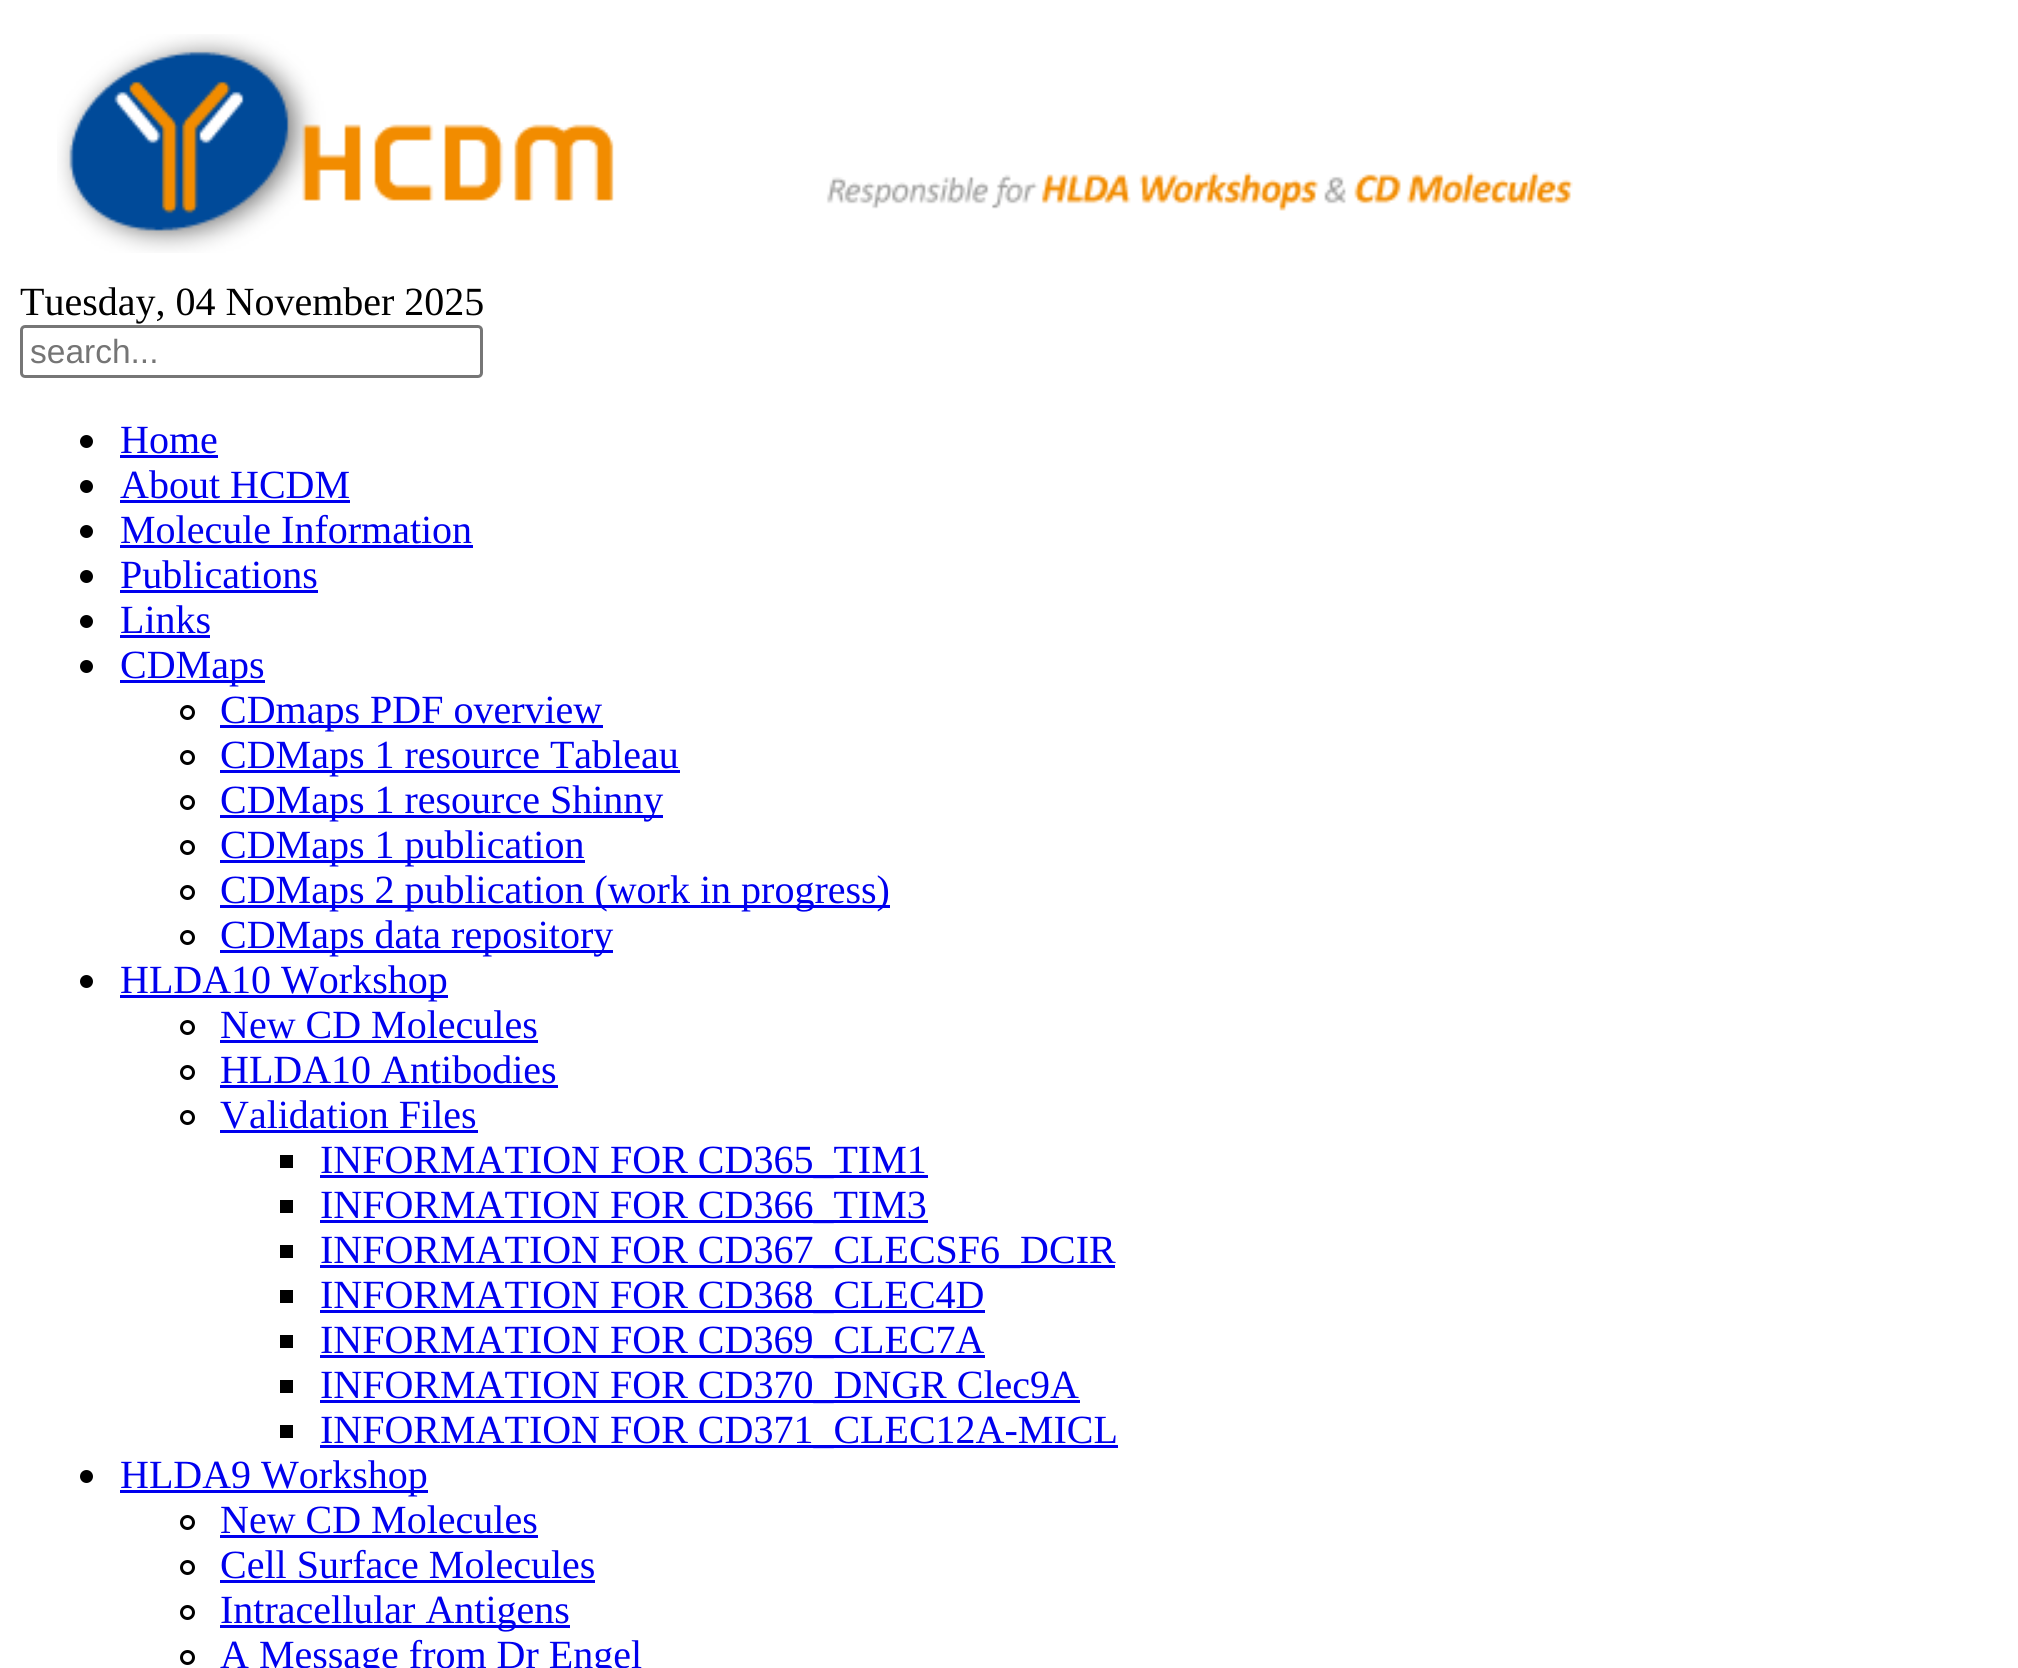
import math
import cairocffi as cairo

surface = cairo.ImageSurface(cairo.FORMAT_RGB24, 2018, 1668)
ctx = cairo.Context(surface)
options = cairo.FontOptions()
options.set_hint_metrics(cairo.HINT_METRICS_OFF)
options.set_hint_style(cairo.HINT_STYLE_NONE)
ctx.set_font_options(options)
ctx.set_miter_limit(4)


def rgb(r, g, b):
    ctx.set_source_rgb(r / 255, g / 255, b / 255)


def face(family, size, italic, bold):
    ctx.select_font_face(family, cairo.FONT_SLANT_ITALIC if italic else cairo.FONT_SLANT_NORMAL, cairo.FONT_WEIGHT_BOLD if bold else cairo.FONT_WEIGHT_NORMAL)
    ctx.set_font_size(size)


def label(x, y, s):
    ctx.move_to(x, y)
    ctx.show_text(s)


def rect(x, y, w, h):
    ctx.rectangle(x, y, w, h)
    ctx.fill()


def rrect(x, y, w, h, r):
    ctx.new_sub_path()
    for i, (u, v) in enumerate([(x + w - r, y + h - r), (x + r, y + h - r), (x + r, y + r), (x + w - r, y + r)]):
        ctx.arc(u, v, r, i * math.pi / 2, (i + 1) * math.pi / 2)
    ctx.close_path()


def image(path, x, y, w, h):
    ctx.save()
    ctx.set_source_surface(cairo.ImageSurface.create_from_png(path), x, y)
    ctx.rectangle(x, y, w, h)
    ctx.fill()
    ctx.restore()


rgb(255, 255, 255)
ctx.paint()
image('image0.png', 57, 34, 1516, 219)
face('Liberation Serif', 40, 0, 0)
rgb(0, 0, 0)
label(20, 315, 'Tuesday, 04 November 2025')
rrect(21.5, 326.5, 460, 50, 3.5)
rgb(118, 118, 118)
ctx.set_line_width(3)
ctx.stroke()
face('Liberation Sans', 33.5, 0, 0)
rgb(117, 117, 117)
label(30, 363, 'search...')
rgb(0, 0, 0)
ctx.new_path()
ctx.arc(86.5, 441.5, 6.5, 0, 2 * math.pi)
ctx.fill()
face('Liberation Serif', 40, 0, 0)
rgb(0, 0, 238)
label(120, 453, 'Home')
rect(120, 455, 98, 3)
rgb(0, 0, 0)
ctx.new_path()
ctx.arc(86.5, 486.5, 6.5, 0, 2 * math.pi)
ctx.fill()
rgb(0, 0, 238)
label(120, 498, 'About HCDM')
rect(120, 500, 230, 3)
rgb(0, 0, 0)
ctx.new_path()
ctx.arc(86.5, 531.5, 6.5, 0, 2 * math.pi)
ctx.fill()
rgb(0, 0, 238)
label(120, 543, 'Molecule Information')
rect(120, 545, 353, 3)
rgb(0, 0, 0)
ctx.new_path()
ctx.arc(86.5, 576.5, 6.5, 0, 2 * math.pi)
ctx.fill()
rgb(0, 0, 238)
label(120, 588, 'Publications')
rect(120, 590, 198, 3)
rgb(0, 0, 0)
ctx.new_path()
ctx.arc(86.5, 621.5, 6.5, 0, 2 * math.pi)
ctx.fill()
rgb(0, 0, 238)
label(120, 633, 'Links')
rect(120, 635, 90, 3)
rgb(0, 0, 0)
ctx.new_path()
ctx.arc(86.5, 666.5, 6.5, 0, 2 * math.pi)
ctx.fill()
rgb(0, 0, 238)
rect(120, 680, 145, 3)
label(120, 678, 'CDMaps')
ctx.new_path()
ctx.arc(187.5, 712.5, 6, 0, 2 * math.pi)
rgb(0, 0, 0)
ctx.stroke()
rgb(0, 0, 238)
rect(220, 725, 383, 3)
label(220, 723, 'CDmaps PDF overview')
ctx.new_path()
ctx.arc(187.5, 757.5, 6, 0, 2 * math.pi)
rgb(0, 0, 0)
ctx.stroke()
rgb(0, 0, 238)
rect(220, 770, 460, 3)
label(220, 768, 'CDMaps 1 resource Tableau')
ctx.new_path()
ctx.arc(187.5, 802.5, 6, 0, 2 * math.pi)
rgb(0, 0, 0)
ctx.stroke()
rgb(0, 0, 238)
rect(220, 815, 443, 3)
label(220, 813, 'CDMaps 1 resource Shinny')
ctx.new_path()
ctx.arc(187.5, 847.5, 6, 0, 2 * math.pi)
rgb(0, 0, 0)
ctx.stroke()
rgb(0, 0, 238)
rect(220, 860, 365, 3)
label(220, 858, 'CDMaps 1 publication')
ctx.new_path()
ctx.arc(187.5, 892.5, 6, 0, 2 * math.pi)
rgb(0, 0, 0)
ctx.stroke()
rgb(0, 0, 238)
rect(220, 905, 670, 3)
label(220, 903, 'CDMaps 2 publication (work in progress)')
ctx.new_path()
ctx.arc(187.5, 937.5, 6, 0, 2 * math.pi)
rgb(0, 0, 0)
ctx.stroke()
rgb(0, 0, 238)
rect(220, 950, 393, 3)
label(220, 948, 'CDMaps data repository')
rgb(0, 0, 0)
ctx.new_path()
ctx.arc(86.5, 981.5, 6.5, 0, 2 * math.pi)
ctx.fill()
rgb(0, 0, 238)
rect(120, 995, 328, 3)
label(120, 993, 'HLDA10 Workshop')
ctx.new_path()
ctx.arc(187.5, 1027.5, 6, 0, 2 * math.pi)
rgb(0, 0, 0)
ctx.stroke()
rgb(0, 0, 238)
label(220, 1038, 'New CD Molecules')
rect(220, 1040, 318, 3)
ctx.new_path()
ctx.arc(187.5, 1072.5, 6, 0, 2 * math.pi)
rgb(0, 0, 0)
ctx.stroke()
rgb(0, 0, 238)
label(220, 1083, 'HLDA10 Antibodies')
rect(220, 1085, 338, 3)
ctx.new_path()
ctx.arc(187.5, 1117.5, 6, 0, 2 * math.pi)
rgb(0, 0, 0)
ctx.stroke()
rgb(0, 0, 238)
label(220, 1128, 'Validation Files')
rect(220, 1130, 258, 3)
rgb(0, 0, 0)
rect(280, 1155, 13, 13)
rgb(0, 0, 238)
rect(320, 1175, 608, 3)
label(320, 1173, 'INFORMATION FOR CD365_TIM1')
rgb(0, 0, 0)
rect(280, 1200, 13, 13)
rgb(0, 0, 238)
rect(320, 1220, 608, 3)
label(320, 1218, 'INFORMATION FOR CD366_TIM3')
rgb(0, 0, 0)
rect(280, 1245, 13, 13)
rgb(0, 0, 238)
rect(320, 1265, 795, 3)
label(320, 1263, 'INFORMATION FOR CD367_CLECSF6_DCIR')
rgb(0, 0, 0)
rect(280, 1290, 13, 13)
rgb(0, 0, 238)
rect(320, 1310, 665, 3)
label(320, 1308, 'INFORMATION FOR CD368_CLEC4D')
rgb(0, 0, 0)
rect(280, 1335, 13, 13)
rgb(0, 0, 238)
rect(320, 1355, 665, 3)
label(320, 1353, 'INFORMATION FOR CD369_CLEC7A')
rgb(0, 0, 0)
rect(280, 1380, 13, 13)
rgb(0, 0, 238)
rect(320, 1400, 760, 3)
label(320, 1398, 'INFORMATION FOR CD370_DNGR Clec9A')
rgb(0, 0, 0)
rect(280, 1425, 13, 13)
rgb(0, 0, 238)
rect(320, 1445, 798, 3)
label(320, 1443, 'INFORMATION FOR CD371_CLEC12A-MICL')
rgb(0, 0, 0)
ctx.new_path()
ctx.arc(86.5, 1476.5, 6.5, 0, 2 * math.pi)
ctx.fill()
rgb(0, 0, 238)
rect(120, 1490, 308, 3)
label(120, 1488, 'HLDA9 Workshop')
ctx.new_path()
ctx.arc(187.5, 1522.5, 6, 0, 2 * math.pi)
rgb(0, 0, 0)
ctx.stroke()
rgb(0, 0, 238)
label(220, 1533, 'New CD Molecules')
rect(220, 1535, 318, 3)
ctx.new_path()
ctx.arc(187.5, 1567.5, 6, 0, 2 * math.pi)
rgb(0, 0, 0)
ctx.stroke()
rgb(0, 0, 238)
label(220, 1578, 'Cell Surface Molecules')
rect(220, 1580, 375, 3)
ctx.new_path()
ctx.arc(187.5, 1612.5, 6, 0, 2 * math.pi)
rgb(0, 0, 0)
ctx.stroke()
rgb(0, 0, 238)
rect(220, 1625, 350, 3)
label(220, 1623, 'Intracellular Antigens')
ctx.new_path()
ctx.arc(187.5, 1657.5, 6, 0, 2 * math.pi)
rgb(0, 0, 0)
ctx.stroke()
rgb(0, 0, 238)
label(220, 1668, 'A Message from Dr Engel')
surface.write_to_png('render.png')
